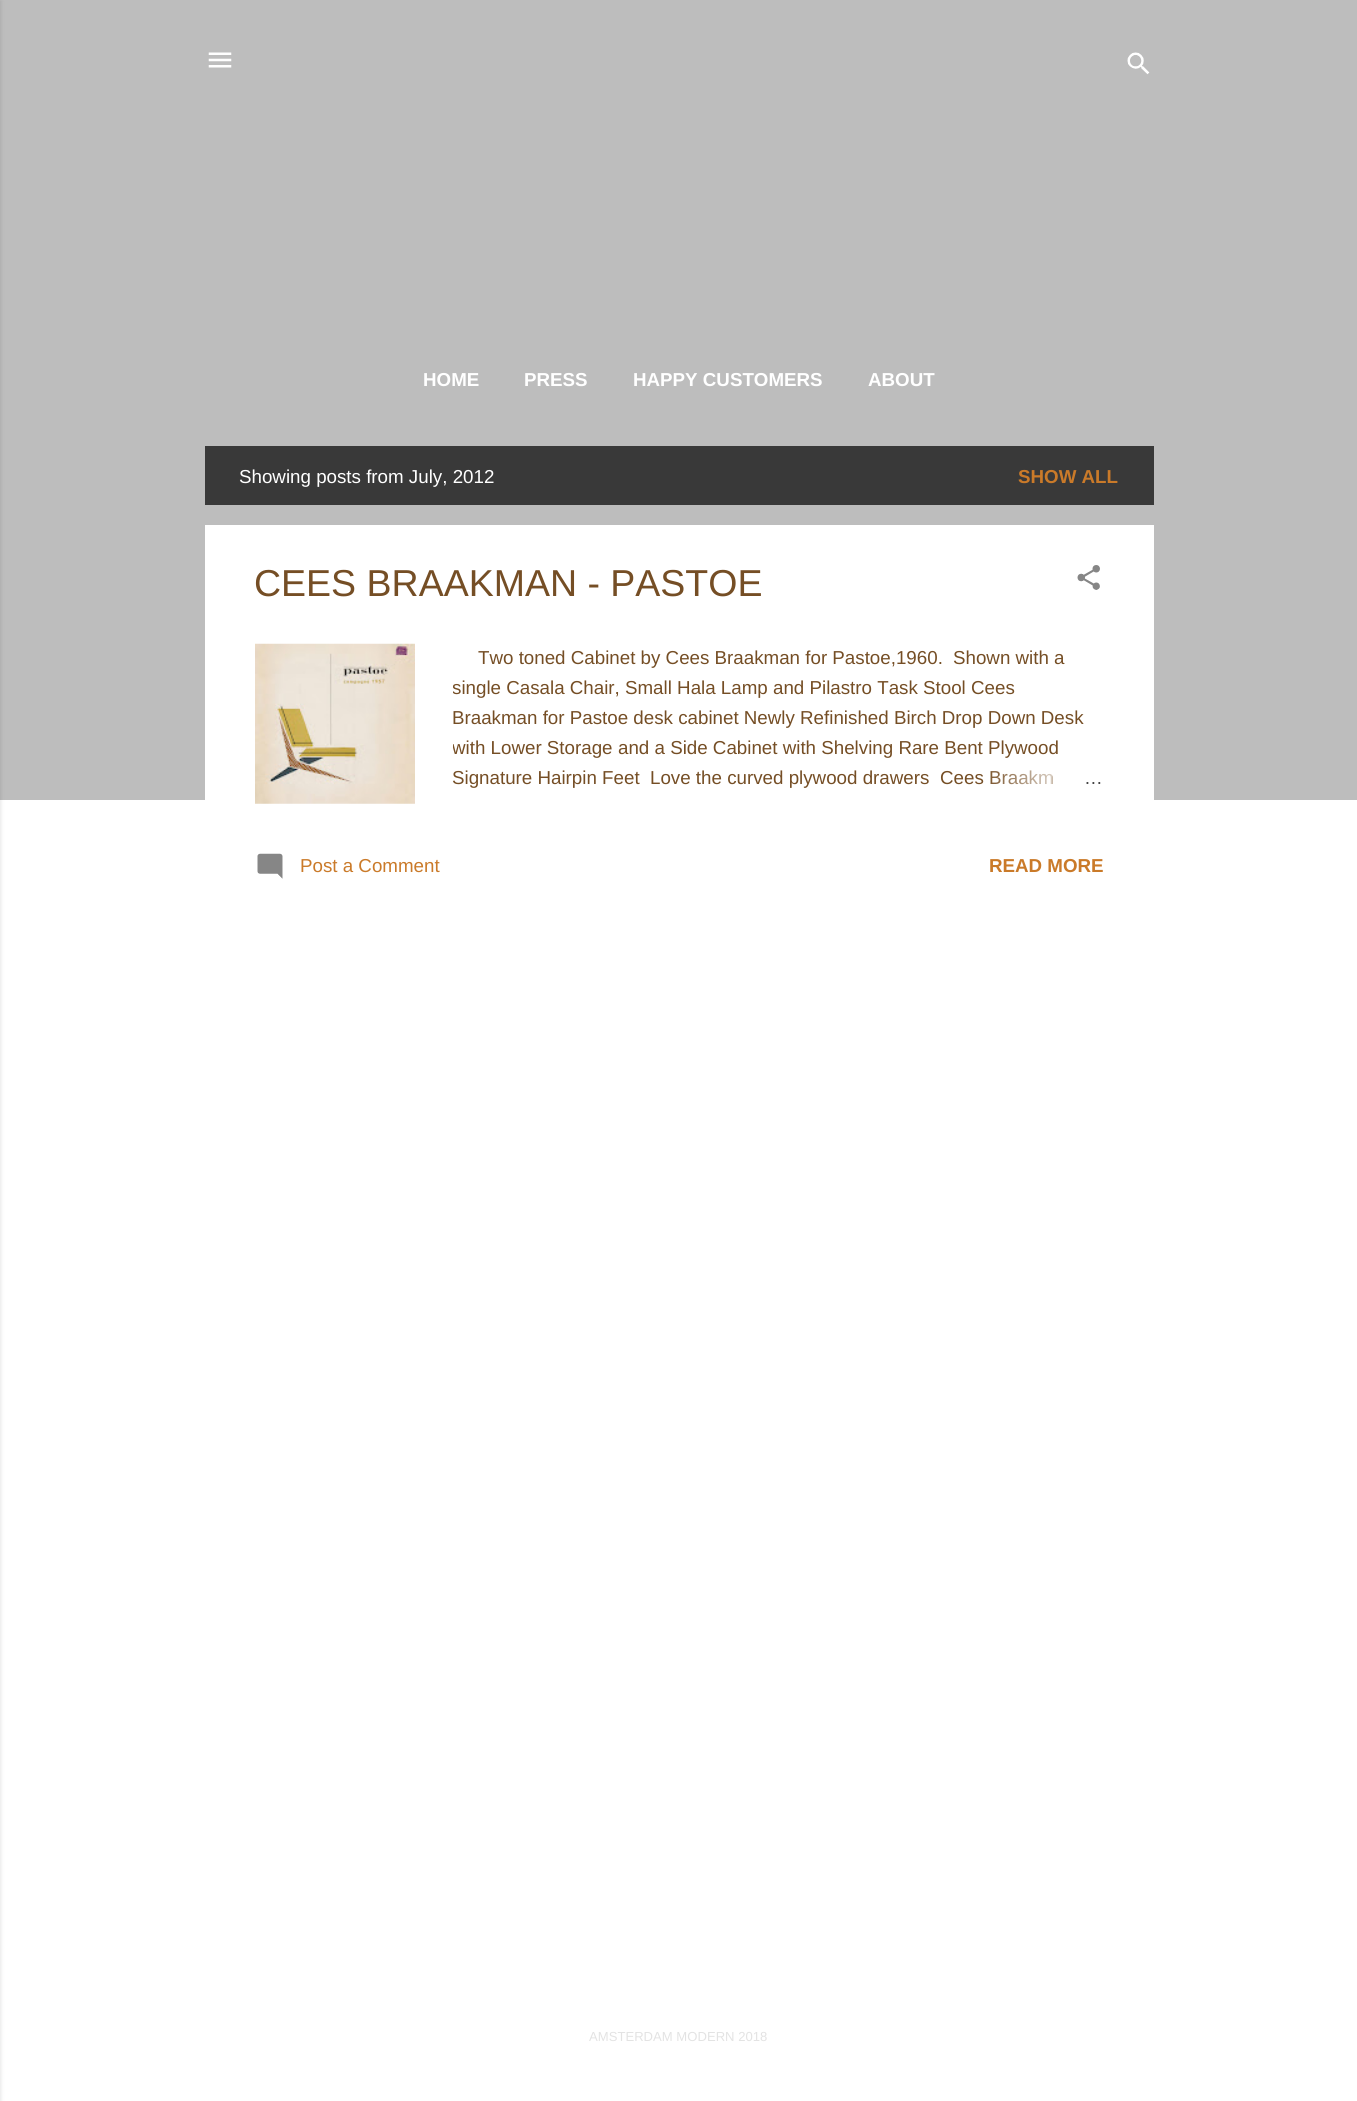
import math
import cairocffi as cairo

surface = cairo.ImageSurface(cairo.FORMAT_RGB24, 1357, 2101)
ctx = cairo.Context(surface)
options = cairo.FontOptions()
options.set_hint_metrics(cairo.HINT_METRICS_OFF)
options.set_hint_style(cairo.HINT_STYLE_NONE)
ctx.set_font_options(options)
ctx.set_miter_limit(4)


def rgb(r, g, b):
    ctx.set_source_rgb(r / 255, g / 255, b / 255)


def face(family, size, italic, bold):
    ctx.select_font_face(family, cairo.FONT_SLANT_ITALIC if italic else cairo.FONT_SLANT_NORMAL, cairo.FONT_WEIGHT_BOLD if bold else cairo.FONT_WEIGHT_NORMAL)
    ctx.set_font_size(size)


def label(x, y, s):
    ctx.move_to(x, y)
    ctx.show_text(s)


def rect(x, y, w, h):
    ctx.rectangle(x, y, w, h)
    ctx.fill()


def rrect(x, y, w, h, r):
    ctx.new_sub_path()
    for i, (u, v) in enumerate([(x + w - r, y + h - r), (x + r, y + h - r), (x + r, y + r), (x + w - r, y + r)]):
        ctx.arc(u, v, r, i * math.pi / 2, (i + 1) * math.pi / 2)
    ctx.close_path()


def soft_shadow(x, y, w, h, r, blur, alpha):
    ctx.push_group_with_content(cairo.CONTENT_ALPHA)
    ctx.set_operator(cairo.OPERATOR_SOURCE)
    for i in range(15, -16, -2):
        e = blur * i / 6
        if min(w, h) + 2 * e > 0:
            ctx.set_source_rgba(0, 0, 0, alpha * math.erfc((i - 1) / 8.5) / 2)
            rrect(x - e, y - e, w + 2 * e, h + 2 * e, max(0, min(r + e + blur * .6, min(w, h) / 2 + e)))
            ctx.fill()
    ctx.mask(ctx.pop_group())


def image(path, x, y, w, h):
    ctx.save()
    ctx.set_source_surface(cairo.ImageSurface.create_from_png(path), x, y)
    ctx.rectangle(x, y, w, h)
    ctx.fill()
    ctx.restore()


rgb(255, 255, 255)
ctx.paint()
rgb(189, 189, 189)
rect(0, 0, 1357, 800)
rgb(0, 0, 0)
soft_shadow(-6, 1, 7, 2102, 0, 2, 0.1)
image('image0.png', 208, 52, 24, 16)
image('image1.png', 1127, 52, 23, 23)
face('Liberation Sans', 18.75, 0, 1)
rgb(255, 255, 255)
label(423, 386, 'HOME')
label(524, 386, 'PRESS')
label(633, 386, 'HAPPY CUSTOMERS')
label(868, 386, 'ABOUT')
rgb(57, 57, 57)
rect(205, 446, 949, 59)
face('Liberation Sans', 18.75, 0, 0)
rgb(255, 255, 255)
label(239, 483, 'Showing posts from July, 2012')
face('Liberation Sans', 18.75, 0, 1)
rgb(202, 122, 41)
label(1018, 483, 'SHOW ALL')
rgb(255, 255, 255)
rect(205, 525, 949, 275)
face('Liberation Sans', 37.5, 0, 0)
rgb(117, 78, 37)
label(254, 596, 'CEES BRAAKMAN - PASTOE')
image('image2.png', 1077, 565, 23, 25)
image('image3.png', 255, 643, 160, 161)
face('Liberation Sans', 18.75, 0, 0)
label(478, 664, 'Two toned Cabinet by Cees Braakman for Pastoe,1960.')
label(953, 664, 'Shown with a')
ctx.save()
ctx.rectangle(453, 644, 651, 150)
ctx.clip()
label(452, 694, 'single Casala Chair, Small Hala Lamp and Pilastro Task Stool')
ctx.restore()
label(971, 694, 'Cees')
label(452, 724, 'Braakman for Pastoe desk cabinet Newly Refinished Birch Drop Down Desk')
ctx.save()
ctx.rectangle(453, 644, 651, 150)
ctx.clip()
label(452, 754, 'with Lower Storage')
ctx.restore()
label(618, 754, 'and a Side Cabinet with Shelving Rare Bent Plywood')
label(452, 784, 'Signature Hairpin Feet')
label(650, 784, 'Love the curved plywood drawers')
label(940, 784, 'Cees Braakm')
gradient = cairo.LinearGradient(1104, 779, 984, 779)
gradient.add_color_stop_rgba(0, 1, 1, 1, 1)
gradient.add_color_stop_rgba(0.2, 1, 1, 1, 1)
gradient.add_color_stop_rgba(1, 1, 1, 1, 0)
ctx.set_source(gradient)
rect(990, 770, 62, 15)
rgb(68, 68, 68)
label(1084, 784, '…')
image('image4.png', 257, 853, 26, 26)
rgb(202, 122, 41)
label(300, 872, 'Post a Comment')
face('Liberation Sans', 18.75, 0, 1)
label(989, 872, 'READ MORE')
face('Liberation Sans', 13.1, 0, 0)
rgb(227, 227, 227)
label(589, 2041, 'AMSTERDAM MODERN 2018')
surface.write_to_png('render.png')
